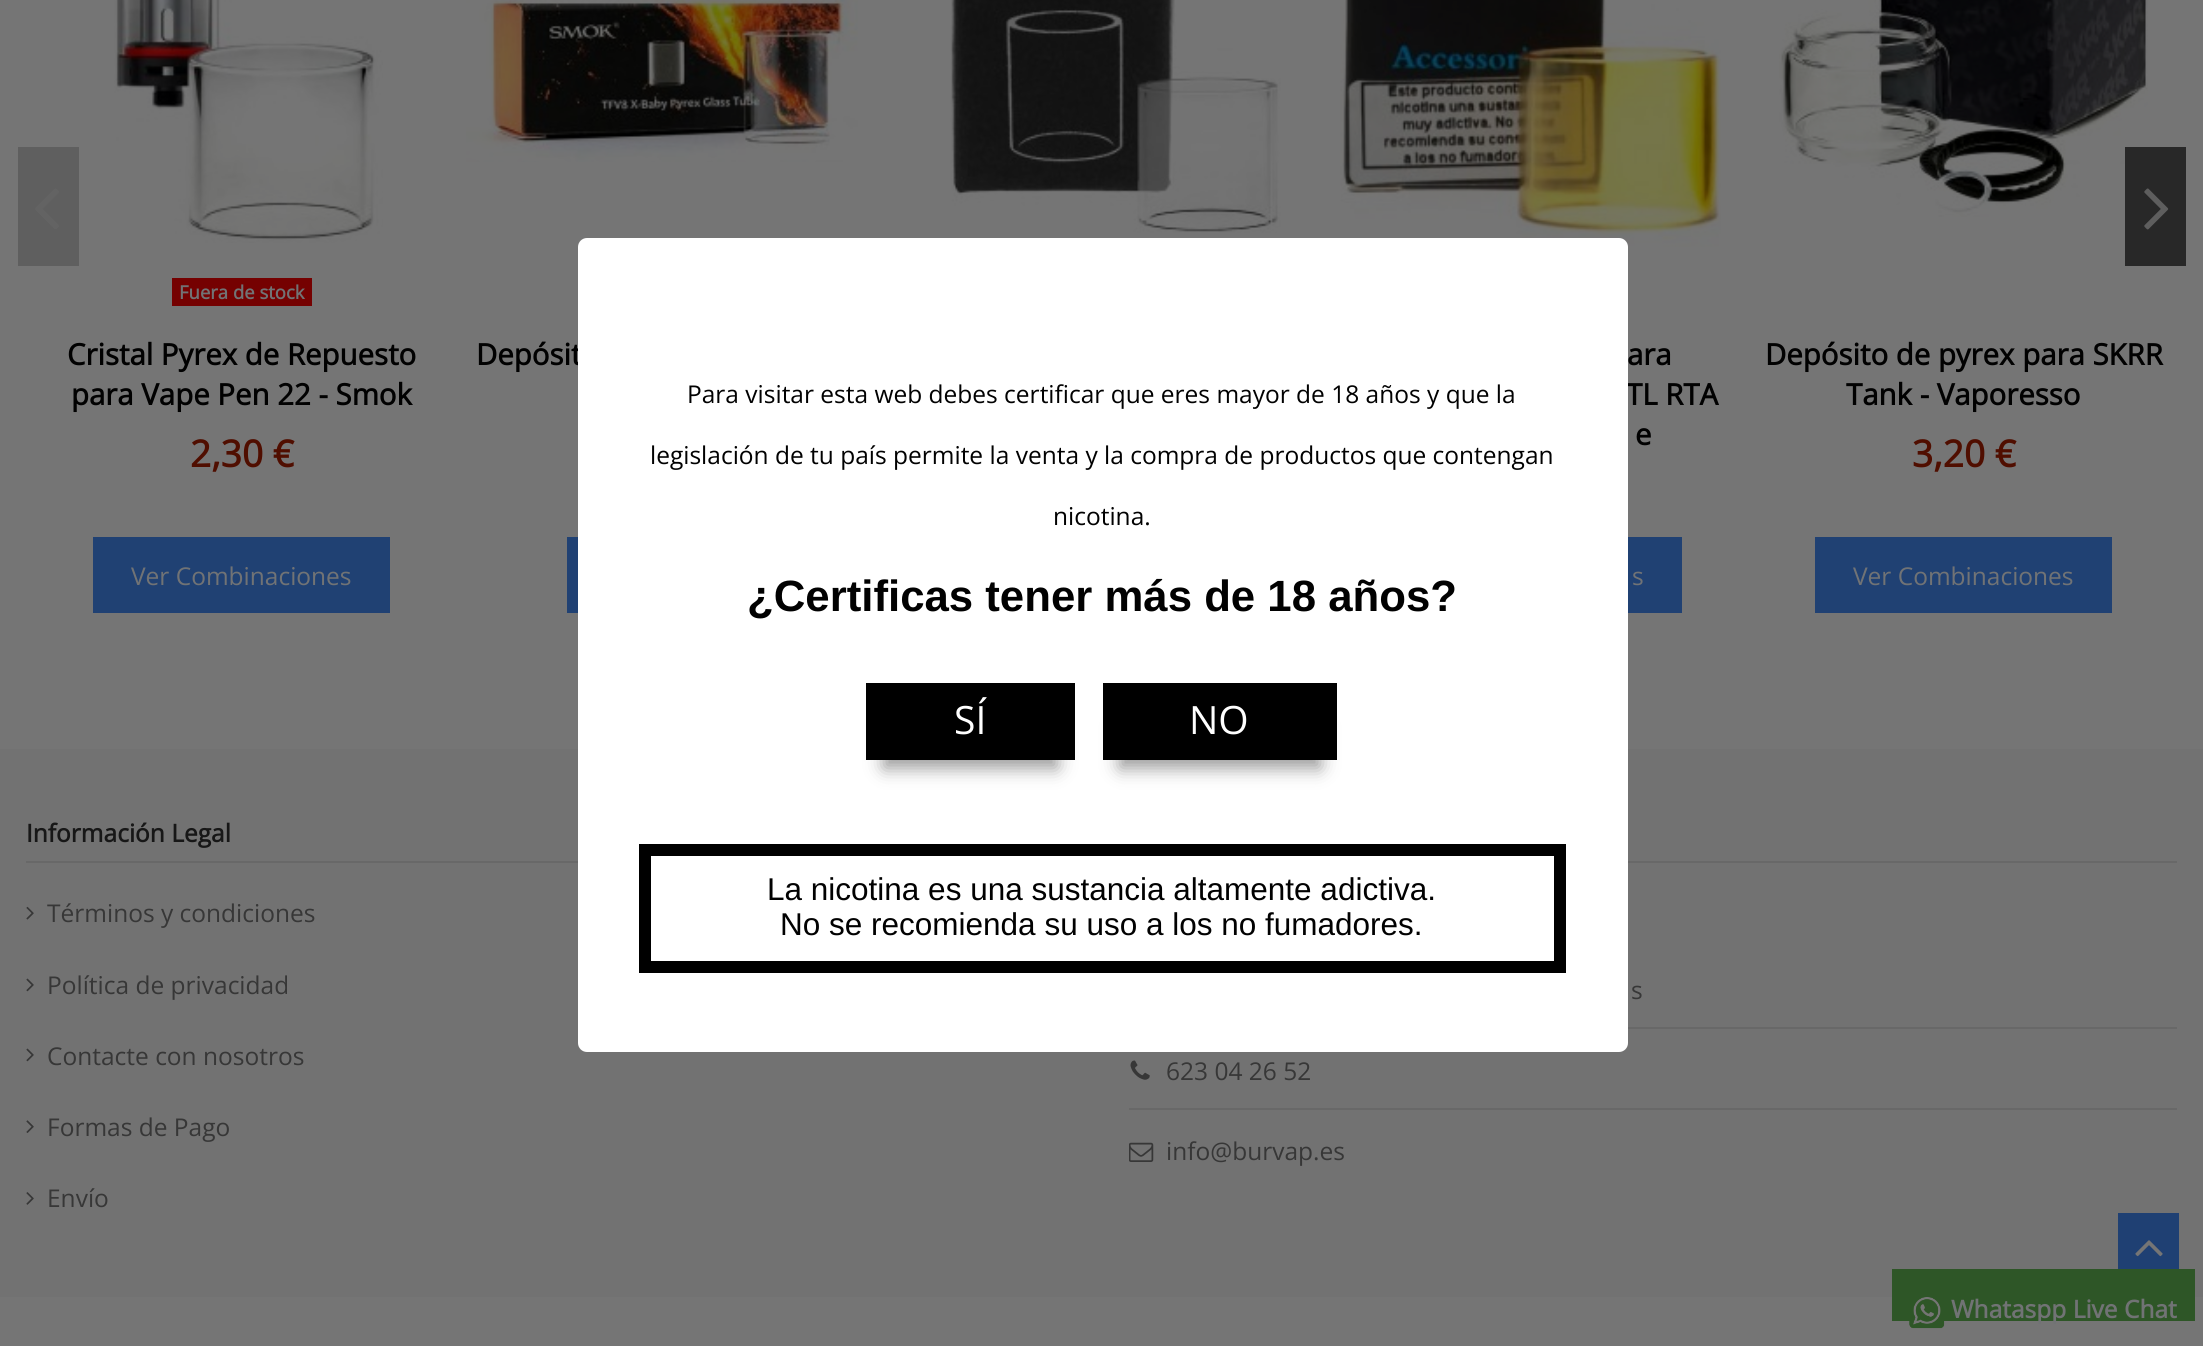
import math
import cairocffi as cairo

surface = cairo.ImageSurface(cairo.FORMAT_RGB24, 2203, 1346)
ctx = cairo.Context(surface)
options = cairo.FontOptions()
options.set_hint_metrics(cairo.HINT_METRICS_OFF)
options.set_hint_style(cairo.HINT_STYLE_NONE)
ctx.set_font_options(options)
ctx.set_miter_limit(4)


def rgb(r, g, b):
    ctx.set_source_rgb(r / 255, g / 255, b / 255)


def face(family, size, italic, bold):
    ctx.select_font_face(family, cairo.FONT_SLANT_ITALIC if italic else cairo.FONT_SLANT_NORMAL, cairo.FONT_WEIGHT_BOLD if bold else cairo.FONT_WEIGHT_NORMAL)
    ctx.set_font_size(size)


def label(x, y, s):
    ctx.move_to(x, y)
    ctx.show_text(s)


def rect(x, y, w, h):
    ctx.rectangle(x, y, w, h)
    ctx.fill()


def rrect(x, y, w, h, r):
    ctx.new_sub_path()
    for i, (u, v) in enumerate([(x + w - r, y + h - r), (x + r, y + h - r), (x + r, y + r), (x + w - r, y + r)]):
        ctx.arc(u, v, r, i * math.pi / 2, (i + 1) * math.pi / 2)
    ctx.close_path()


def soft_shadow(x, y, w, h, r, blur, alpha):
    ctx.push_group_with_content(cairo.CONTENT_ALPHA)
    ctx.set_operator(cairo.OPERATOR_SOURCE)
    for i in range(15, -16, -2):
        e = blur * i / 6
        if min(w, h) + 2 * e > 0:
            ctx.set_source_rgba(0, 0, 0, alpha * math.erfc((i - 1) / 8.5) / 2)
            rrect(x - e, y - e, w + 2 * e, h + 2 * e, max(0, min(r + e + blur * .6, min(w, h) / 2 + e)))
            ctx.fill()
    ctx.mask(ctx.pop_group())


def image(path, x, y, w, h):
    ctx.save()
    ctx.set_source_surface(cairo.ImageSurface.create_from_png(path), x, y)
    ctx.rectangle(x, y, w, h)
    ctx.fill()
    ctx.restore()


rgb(117, 117, 117)
ctx.paint()
rgb(95, 95, 95)
rect(18, 147, 61, 119)
image('image0.png', 35, 188, 24, 41)
image('image6.png', 1779, 0, 369, 217)
rgb(40, 40, 40)
rect(2125, 147, 61, 119)
image('image1.png', 2144, 188, 25, 42)
image('image2.png', 950, 0, 331, 233)
image('image3.png', 114, 0, 269, 243)
rgb(117, 1, 1)
rect(172, 278, 140, 28)
face('Open Sans', 18.5, 0, 1)
rgb(113, 115, 117)
label(179, 299, 'Fuera de stock')
face('Open Sans', 29.4, 0, 1)
rgb(1, 1, 1)
label(67, 365, 'Cristal Pyrex de Repuesto')
label(71, 405, 'para Vape Pen 22 - Smok')
face('Open Sans', 37, 0, 1)
rgb(80, 14, 0)
label(190, 467, '2,30 €')
rgb(32, 65, 115)
rect(93, 537, 297, 76)
face('Open Sans', 24.5, 0, 0)
rgb(113, 115, 117)
label(131, 585, 'Ver Combinaciones')
image('image4.png', 466, 0, 392, 162)
face('Open Sans', 29.4, 0, 1)
rgb(1, 1, 1)
label(476, 365, 'Depósit')
rgb(32, 65, 115)
rect(567, 537, 11, 76)
image('image5.png', 1340, 0, 381, 247)
rgb(1, 1, 1)
label(1627, 365, 'ara')
label(1626, 405, 'TL RTA')
label(1635, 445, 'e')
rgb(32, 65, 115)
rect(1628, 537, 54, 76)
face('Open Sans', 24.5, 0, 0)
rgb(113, 115, 117)
label(1632, 585, 's')
face('Open Sans', 29.4, 0, 1)
rgb(1, 1, 1)
label(1765, 365, 'Depósito de pyrex para SKRR')
label(1846, 405, 'Tank - Vaporesso')
face('Open Sans', 37, 0, 1)
rgb(80, 14, 0)
label(1912, 467, '3,20 €')
rgb(32, 65, 115)
rect(1815, 537, 297, 76)
face('Open Sans', 24.5, 0, 0)
rgb(113, 115, 117)
label(1853, 585, 'Ver Combinaciones')
rgb(114, 114, 114)
rect(0, 749, 2203, 548)
rgb(104, 104, 104)
rect(26, 861, 552, 2)
face('Open Sans', 24.5, 0, 1)
rgb(23, 23, 23)
label(26, 842, 'Información Legal')
image('image7.png', 26, 906, 8, 14)
face('Open Sans', 24.5, 0, 0)
rgb(55, 55, 55)
label(47, 922, 'Términos y condiciones')
image('image8.png', 26, 978, 8, 14)
label(47, 994, 'Política de privacidad')
image('image8.png', 26, 1048, 8, 14)
label(47, 1065, 'Contacte con nosotros')
image('image9.png', 26, 1120, 8, 13)
label(47, 1136, 'Formas de Pago')
image('image10.png', 26, 1192, 8, 13)
label(47, 1207, 'Envío')
rgb(104, 104, 104)
rect(1628, 861, 549, 2)
rgb(55, 55, 55)
label(1631, 999, 's')
rgb(104, 104, 104)
rect(1628, 1027, 549, 2)
image('image11.png', 1130, 1060, 20, 20)
rgb(55, 55, 55)
label(1166, 1080, '623 04 26 52')
rgb(104, 104, 104)
rect(1129, 1108, 1048, 2)
image('image12.png', 1129, 1142, 25, 20)
rgb(55, 55, 55)
label(1166, 1160, 'info@burvap.es')
rgb(46, 86, 39)
rect(1892, 1269, 303, 52)
image('image13.png', 1909, 1297, 36, 32)
face('Open Sans', 24.5, 0, 1)
rgb(113, 115, 117)
label(1951, 1318, 'Whataspp Live Chat')
rgb(255, 255, 255)
rrect(578, 238, 1050, 814, 9)
ctx.fill()
face('Open Sans', 24.5, 0, 0)
rgb(1, 1, 1)
label(687, 403, 'Para visitar esta web debes certificar que eres mayor de 18 años y que la')
label(650, 464, 'legislación de tu país permite la venta y la compra de productos que contengan')
label(1053, 525, 'nicotina.')
face('Liberation Sans', 43.75, 0, 1)
label(747, 611, '¿Certificas tener más de 18 años?')
rgb(153, 153, 153)
soft_shadow(884, 726, 173, 42, 0, 9, 1)
rgb(0, 0, 0)
rect(866, 683, 209, 77)
face('Open Sans', 39, 0, 0)
rgb(255, 255, 255)
label(954, 734, 'SÍ')
rgb(153, 153, 153)
soft_shadow(1120, 726, 200, 42, 0, 9, 1)
rgb(0, 0, 0)
rect(1103, 683, 234, 77)
rgb(255, 255, 255)
label(1189, 734, 'NO')
ctx.rectangle(645, 850, 915, 117)
rgb(0, 0, 0)
ctx.set_line_width(12)
ctx.stroke()
face('Liberation Sans', 31.5, 0, 0)
rgb(1, 1, 1)
label(767, 900, 'La nicotina es una sustancia altamente adictiva.')
label(780, 935, 'No se recomienda su uso a los no fumadores.')
rgb(31, 64, 115)
rect(2118, 1213, 61, 56)
image('image14.png', 2135, 1240, 28, 17)
surface.write_to_png('render.png')
